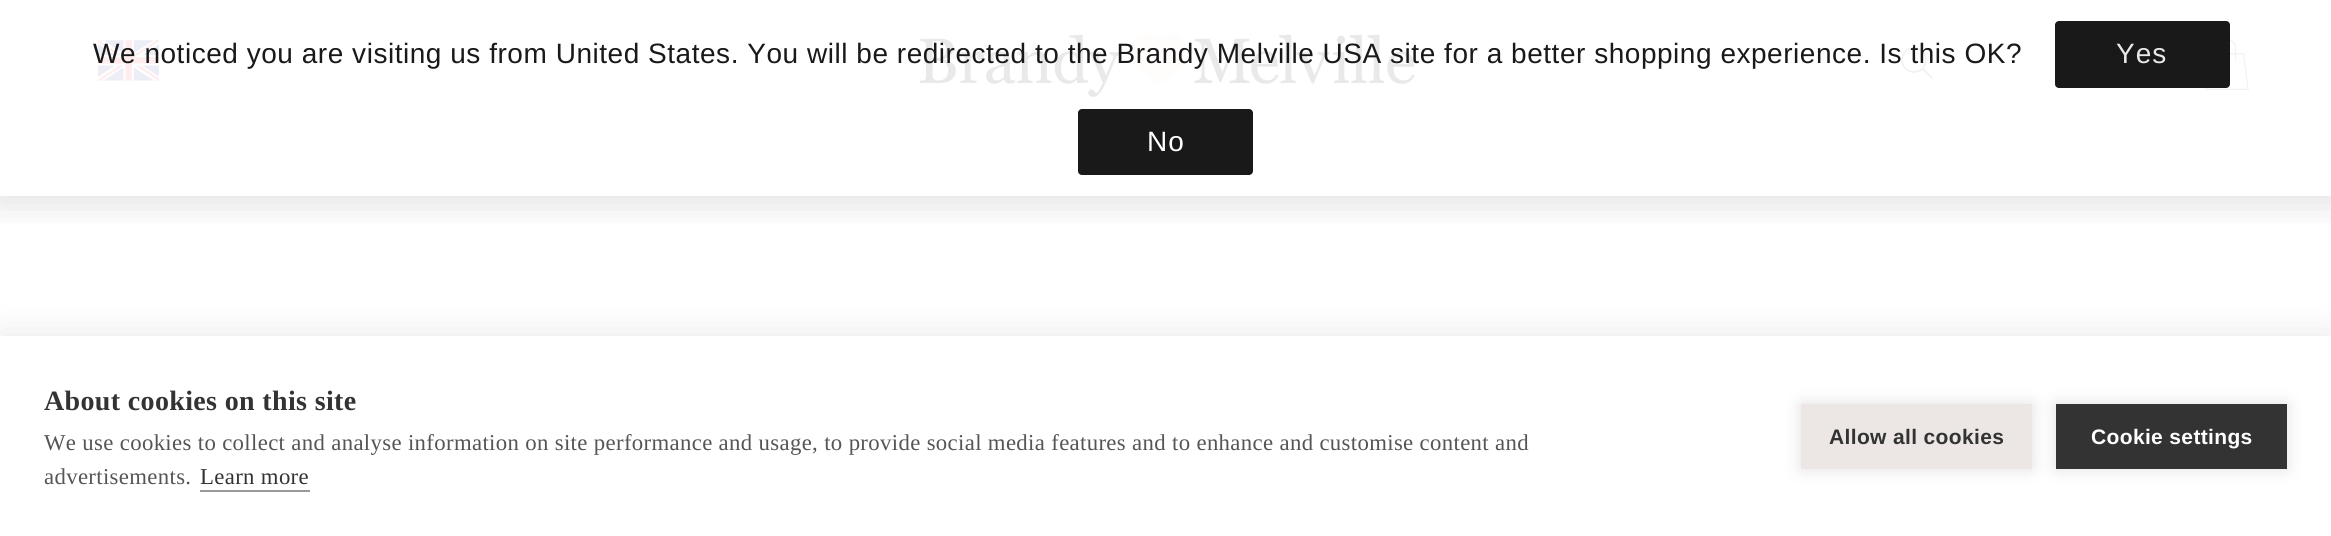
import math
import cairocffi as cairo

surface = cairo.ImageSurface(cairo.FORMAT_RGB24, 2331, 536)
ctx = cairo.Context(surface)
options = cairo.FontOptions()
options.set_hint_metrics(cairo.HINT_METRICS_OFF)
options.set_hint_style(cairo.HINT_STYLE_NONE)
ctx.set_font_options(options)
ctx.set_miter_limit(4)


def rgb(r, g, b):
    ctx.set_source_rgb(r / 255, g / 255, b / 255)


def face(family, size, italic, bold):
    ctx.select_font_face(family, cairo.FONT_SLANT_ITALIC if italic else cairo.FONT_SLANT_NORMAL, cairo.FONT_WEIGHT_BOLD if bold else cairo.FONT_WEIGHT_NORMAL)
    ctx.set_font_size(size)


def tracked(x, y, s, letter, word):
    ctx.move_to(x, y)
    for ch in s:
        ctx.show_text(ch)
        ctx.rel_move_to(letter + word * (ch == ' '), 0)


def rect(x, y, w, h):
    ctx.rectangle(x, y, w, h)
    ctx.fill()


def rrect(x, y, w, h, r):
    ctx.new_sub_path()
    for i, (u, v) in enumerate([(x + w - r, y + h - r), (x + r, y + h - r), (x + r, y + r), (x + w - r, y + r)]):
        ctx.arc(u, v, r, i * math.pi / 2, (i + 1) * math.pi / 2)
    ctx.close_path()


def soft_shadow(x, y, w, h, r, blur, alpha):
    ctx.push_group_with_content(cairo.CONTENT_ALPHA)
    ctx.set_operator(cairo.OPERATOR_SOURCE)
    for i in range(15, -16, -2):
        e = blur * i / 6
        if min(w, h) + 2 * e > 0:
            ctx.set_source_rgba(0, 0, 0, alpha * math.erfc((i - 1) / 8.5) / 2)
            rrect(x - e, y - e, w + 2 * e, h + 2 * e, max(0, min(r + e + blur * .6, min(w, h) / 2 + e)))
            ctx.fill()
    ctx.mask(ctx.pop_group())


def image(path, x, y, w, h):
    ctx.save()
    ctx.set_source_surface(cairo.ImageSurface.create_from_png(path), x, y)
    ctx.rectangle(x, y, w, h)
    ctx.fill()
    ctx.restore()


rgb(255, 255, 255)
ctx.paint()
image('image0.png', 98, 40, 61, 41)
image('image1.png', 919, 33, 496, 64)
ctx.new_path()
ctx.move_to(1932, 78)
ctx.line_to(1922.5, 68.5)
rgb(241, 241, 241)
ctx.set_line_width(1.7)
ctx.set_line_cap(cairo.LINE_CAP_SQUARE)
ctx.stroke()
ctx.arc(1914, 60, 12, 0, 2 * math.pi)
ctx.set_line_cap(cairo.LINE_CAP_BUTT)
ctx.stroke()
rrect(2111, 51, 35, 3, 1.5)
ctx.fill()
rrect(2111, 63, 35, 3, 1.5)
ctx.fill()
rrect(2111, 75, 35, 2, 1)
ctx.fill()
image('image2.png', 2205, 39, 44, 51)
ctx.save()
ctx.rectangle(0, 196, 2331, 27)
ctx.clip()
rgb(26, 26, 26)
soft_shadow(-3, -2, 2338, 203, 0, 20, 0.15)
ctx.restore()
face('Liberation Sans', 28, 0, 0)
rgb(25, 25, 25)
tracked(93, 63, 'We noticed you are visiting us from United States. You will be redirected to the Brandy Melville USA site for a better shopping experience. Is this OK?', 0.53, 0)
ctx.set_source_rgba(0, 0, 0, 0.9)
rrect(2055, 21, 175, 67, 4)
ctx.fill()
rgb(232, 232, 232)
tracked(2116, 63, 'Yes', 1, 0)
ctx.set_source_rgba(0, 0, 0, 0.9)
rrect(1078, 109, 175, 66, 4)
ctx.fill()
rgb(255, 255, 255)
tracked(1147, 151, 'No', 1, 0)
rgb(0, 0, 0)
soft_shadow(0, 336, 2331, 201, 0, 17.5, 0.1)
rgb(255, 255, 255)
rect(0, 336, 2331, 200)
face('Liberation Serif', 28, 0, 1)
rgb(51, 51, 51)
tracked(44, 410, 'About cookies on this site', 0.35, 0)
face('Liberation Serif', 22.75, 0, 0)
rgb(85, 85, 85)
tracked(44, 450, 'We use cookies to collect and analyse information on site performance and usage, to provide social media features and to enhance and customise content and', 0.35, 0)
tracked(44, 484, 'advertisements.', 0.35, 0)
rgb(51, 51, 51)
tracked(200, 484, 'Learn more', 0.35, 0)
rgb(153, 153, 153)
rect(200, 490, 110, 2)
rgb(0, 0, 0)
soft_shadow(1801, 404, 231, 65, 0, 9, 0.12)
rgb(236, 231, 228)
rect(1801, 404, 231, 65)
face('Liberation Sans', 21, 0, 1)
rgb(51, 51, 51)
tracked(1829, 444, 'Allow all cookies', 0.35, 0)
rgb(0, 0, 0)
soft_shadow(2056, 404, 231, 65, 0, 9, 0.12)
rgb(51, 51, 51)
rect(2056, 404, 231, 65)
rgb(255, 255, 255)
tracked(2091, 444, 'Cookie settings', 0.35, 0)
surface.write_to_png('render.png')
